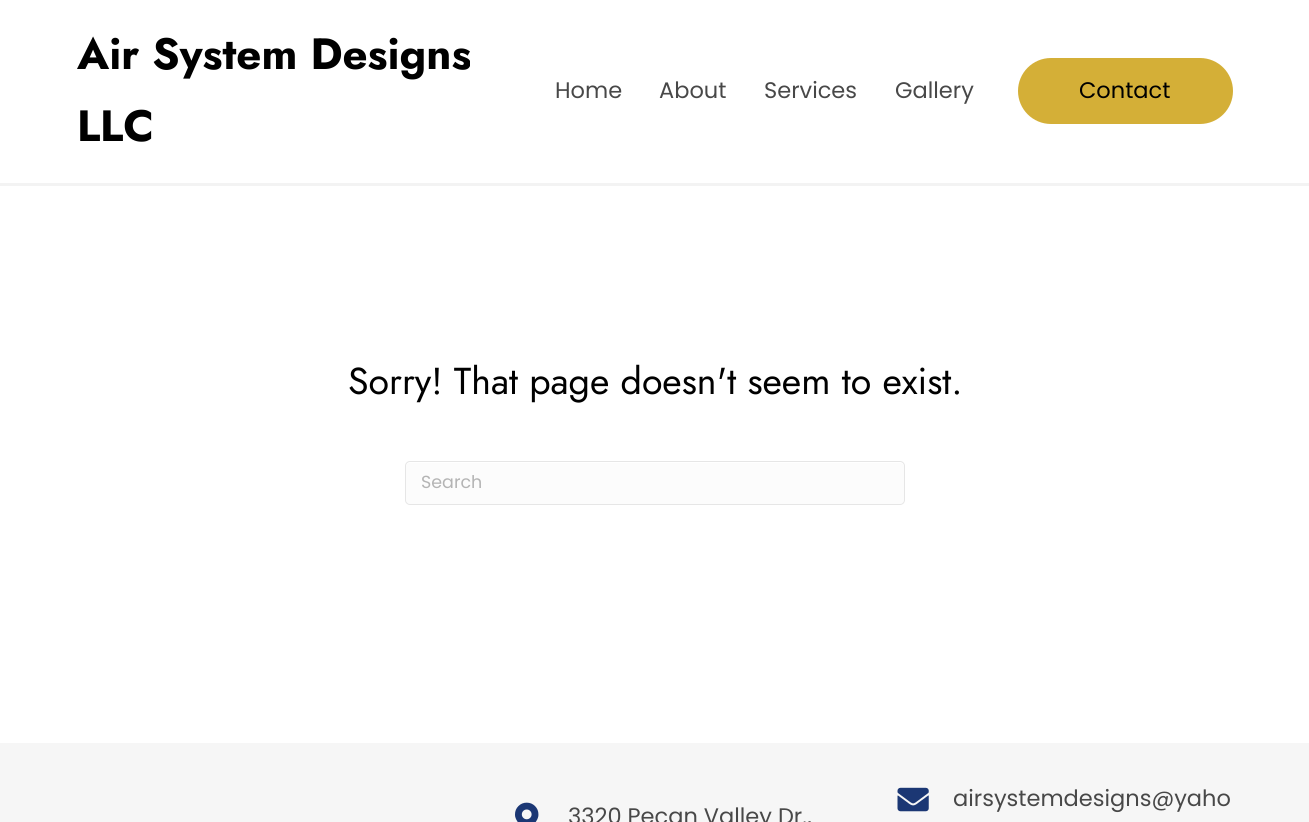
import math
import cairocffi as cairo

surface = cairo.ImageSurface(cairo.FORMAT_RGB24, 1309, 822)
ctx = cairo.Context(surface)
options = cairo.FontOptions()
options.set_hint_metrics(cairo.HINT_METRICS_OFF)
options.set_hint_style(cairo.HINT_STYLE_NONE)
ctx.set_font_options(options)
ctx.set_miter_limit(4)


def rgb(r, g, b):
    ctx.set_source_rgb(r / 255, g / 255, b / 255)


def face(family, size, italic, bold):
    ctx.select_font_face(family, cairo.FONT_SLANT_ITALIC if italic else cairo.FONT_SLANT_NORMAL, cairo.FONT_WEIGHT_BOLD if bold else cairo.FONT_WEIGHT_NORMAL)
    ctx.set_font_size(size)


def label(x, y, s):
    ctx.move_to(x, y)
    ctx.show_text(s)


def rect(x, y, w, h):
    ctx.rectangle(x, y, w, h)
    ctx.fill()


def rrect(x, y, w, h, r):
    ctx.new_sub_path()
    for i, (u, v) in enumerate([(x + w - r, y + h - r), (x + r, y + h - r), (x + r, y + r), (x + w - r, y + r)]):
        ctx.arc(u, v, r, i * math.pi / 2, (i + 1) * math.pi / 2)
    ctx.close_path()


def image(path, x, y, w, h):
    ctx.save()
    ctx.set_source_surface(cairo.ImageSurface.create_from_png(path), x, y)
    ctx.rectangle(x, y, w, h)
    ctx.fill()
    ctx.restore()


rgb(255, 255, 255)
ctx.paint()
rgb(243, 243, 243)
rect(0, 183, 1309, 3)
face('Jost', 43.75, 0, 1)
rgb(0, 0, 0)
label(77, 69, 'Air System Designs')
label(77, 141, 'LLC')
face('Poppins', 22.5, 0, 0)
rgb(72, 72, 72)
label(555, 98, 'Home')
label(659, 98, 'About')
label(764, 98, 'Services')
label(895, 98, 'Gallery')
rgb(212, 175, 55)
rrect(1018, 58, 215, 66, 33)
ctx.fill()
rgb(0, 0, 0)
label(1079, 98, 'Contact')
face('Jost', 37.5, 0, 0)
label(348, 394, 'Sorry! That page doesn\'t seem to exist.')
rgb(252, 252, 252)
rrect(406, 463, 498, 41, 4)
ctx.fill()
rrect(405.5, 461.5, 499, 43, 4.5)
rgb(230, 230, 230)
ctx.set_line_width(1)
ctx.stroke()
face('Poppins', 17.5, 0, 0)
rgb(180, 180, 180)
label(421, 488, 'Search')
rgb(246, 246, 246)
rect(0, 743, 1309, 79)
image('image0.png', 897, 787, 32, 25)
face('Poppins', 22.5, 0, 0)
rgb(72, 72, 72)
label(953, 806, 'airsystemdesigns@yaho')
image('image1.png', 515, 802, 24, 20)
label(568, 824, '3320 Pecan Valley Dr.,')
surface.write_to_png('render.png')
